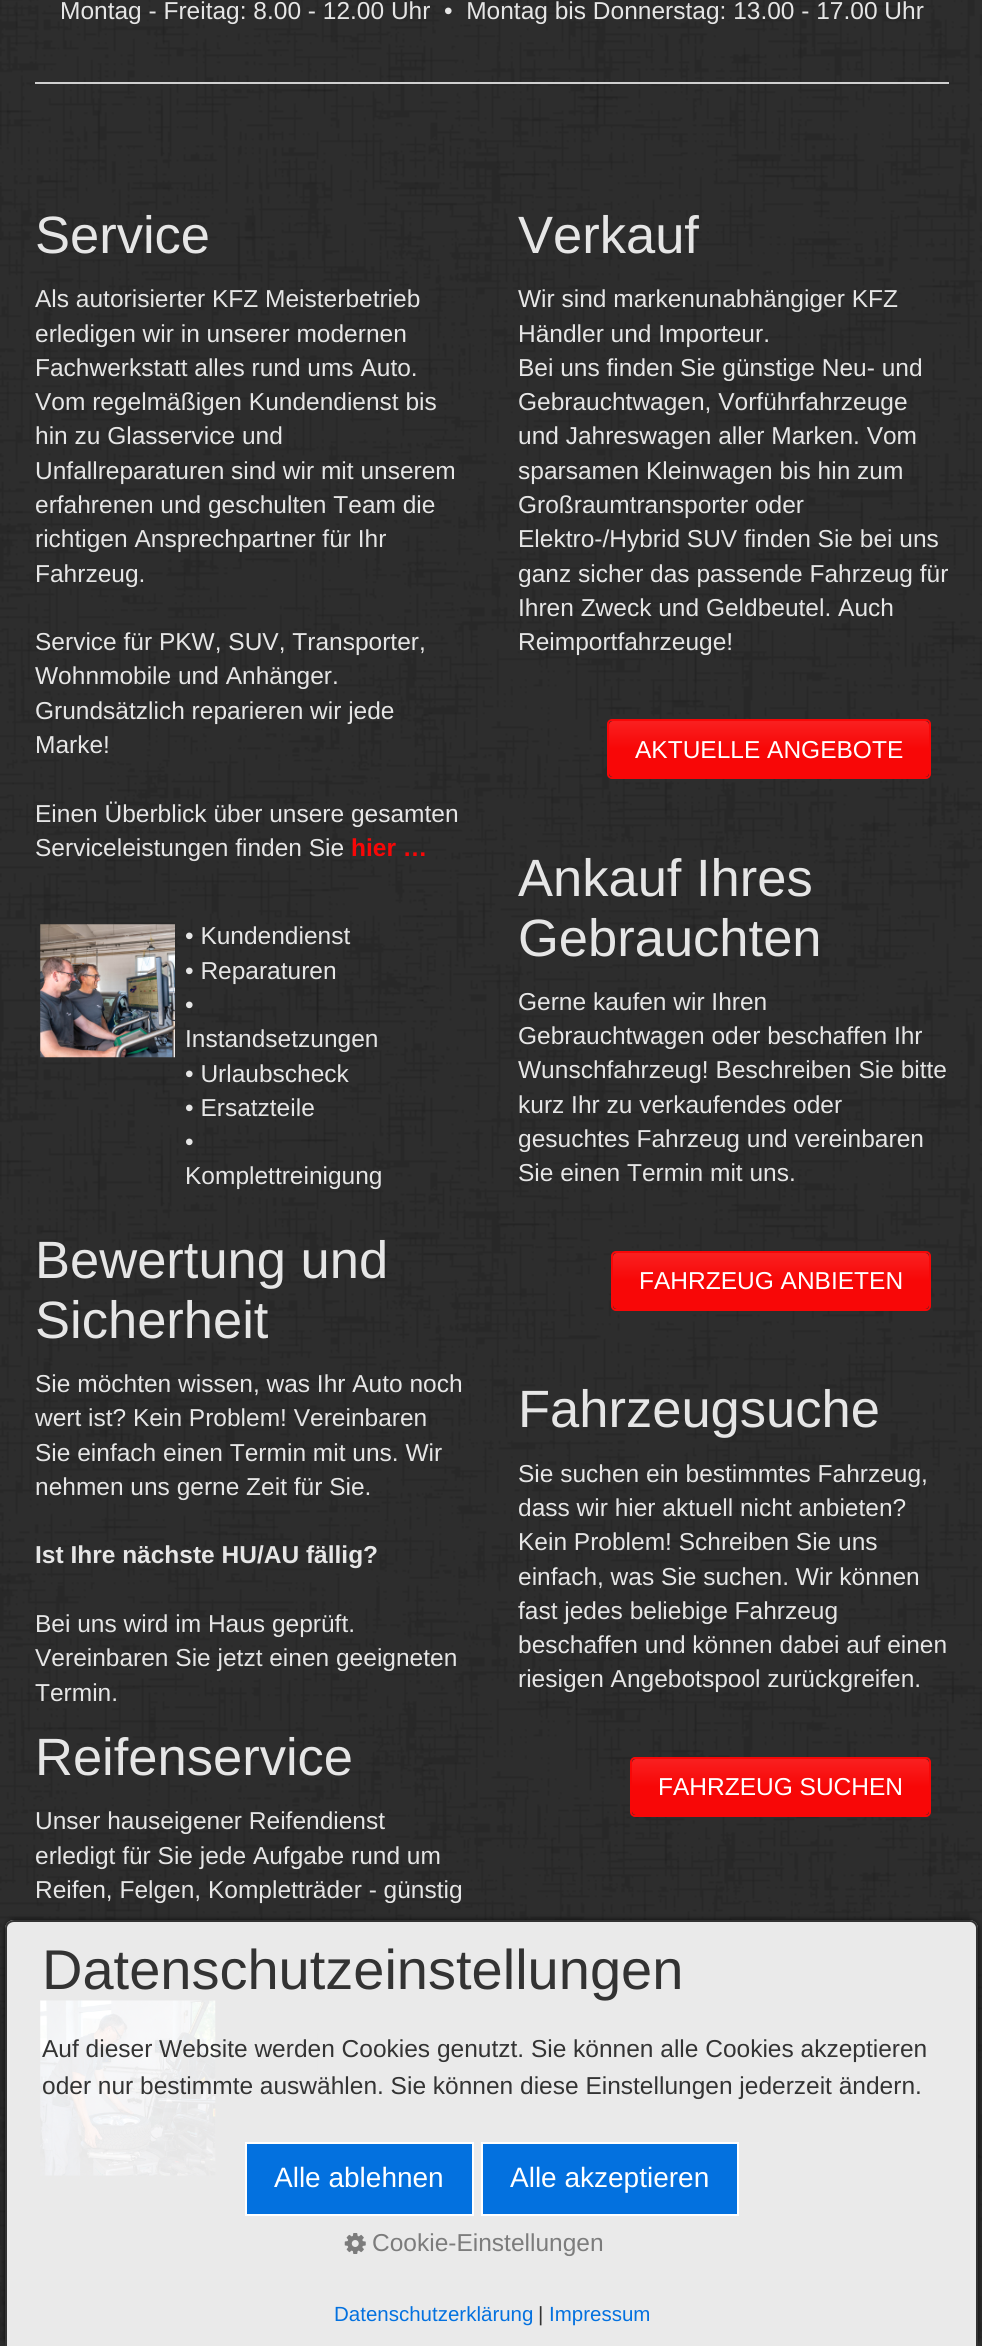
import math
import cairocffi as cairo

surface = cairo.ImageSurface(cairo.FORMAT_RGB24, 982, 2346)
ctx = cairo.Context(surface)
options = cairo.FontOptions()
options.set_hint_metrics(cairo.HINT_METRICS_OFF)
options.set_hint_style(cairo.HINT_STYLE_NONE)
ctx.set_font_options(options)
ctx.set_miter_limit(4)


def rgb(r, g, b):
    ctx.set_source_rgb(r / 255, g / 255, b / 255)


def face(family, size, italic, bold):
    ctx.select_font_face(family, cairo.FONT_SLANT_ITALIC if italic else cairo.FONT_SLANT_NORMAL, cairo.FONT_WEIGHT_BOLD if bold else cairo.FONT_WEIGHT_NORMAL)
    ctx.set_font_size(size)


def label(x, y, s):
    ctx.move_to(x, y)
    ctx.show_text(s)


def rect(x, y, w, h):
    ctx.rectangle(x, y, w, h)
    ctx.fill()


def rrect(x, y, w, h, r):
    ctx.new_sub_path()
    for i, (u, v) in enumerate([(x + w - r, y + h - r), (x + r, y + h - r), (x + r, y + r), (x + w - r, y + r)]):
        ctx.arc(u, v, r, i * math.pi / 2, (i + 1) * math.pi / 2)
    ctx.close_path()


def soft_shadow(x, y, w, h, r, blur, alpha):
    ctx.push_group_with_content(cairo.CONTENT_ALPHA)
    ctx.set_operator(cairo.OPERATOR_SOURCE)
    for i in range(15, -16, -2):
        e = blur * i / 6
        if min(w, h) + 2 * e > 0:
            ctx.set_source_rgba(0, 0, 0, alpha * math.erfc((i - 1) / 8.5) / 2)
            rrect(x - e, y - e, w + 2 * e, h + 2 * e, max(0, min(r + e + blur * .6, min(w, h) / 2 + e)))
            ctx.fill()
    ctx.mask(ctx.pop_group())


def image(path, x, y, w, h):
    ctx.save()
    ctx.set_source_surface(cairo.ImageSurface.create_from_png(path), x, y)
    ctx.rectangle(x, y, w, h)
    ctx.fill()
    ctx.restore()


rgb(255, 255, 255)
ctx.paint()
image('image0.png', 0, 0, 982, 2346)
face('Liberation Sans', 24.5, 0, 0)
rgb(230, 230, 230)
label(60, 19, 'Montag - Freitag: 8.00 - 12.00 Uhr  •  Montag bis Donnerstag: 13.00 - 17.00 Uhr')
rgb(208, 208, 208)
rect(35, 82, 914, 2)
face('Liberation Sans', 52.5, 0, 0)
rgb(230, 230, 230)
label(35, 253, 'Service')
face('Liberation Sans', 24.5, 0, 0)
label(35, 307, 'Als autorisierter KFZ Meisterbetrieb')
label(35, 342, 'erledigen wir in unserer modernen')
label(35, 376, 'Fachwerkstatt alles rund ums Auto.')
label(35, 410, 'Vom regelmäßigen Kundendienst bis')
label(35, 444, 'hin zu Glasservice und')
label(35, 479, 'Unfallreparaturen sind wir mit unserem')
label(35, 513, 'erfahrenen und geschulten Team die')
label(35, 547, 'richtigen Ansprechpartner für Ihr')
label(35, 582, 'Fahrzeug.')
label(35, 650, 'Service für PKW, SUV, Transporter,')
label(35, 684, 'Wohnmobile und Anhänger.')
label(35, 719, 'Grundsätzlich reparieren wir jede')
label(35, 753, 'Marke!')
label(35, 822, 'Einen Überblick über unsere gesamten')
label(35, 856, 'Serviceleistungen finden Sie')
face('Liberation Sans', 24.5, 0, 1)
rgb(248, 7, 7)
label(351, 856, 'hier …')
image('image1.png', 40, 924, 135, 134)
face('Liberation Sans', 24.5, 0, 0)
rgb(230, 230, 230)
label(185, 944, '• Kundendienst')
label(185, 979, '• Reparaturen')
label(185, 1013, '•')
label(185, 1047, 'Instandsetzungen')
label(185, 1082, '• Urlaubscheck')
label(185, 1116, '• Ersatzteile')
label(185, 1150, '•')
label(185, 1184, 'Komplettreinigung')
face('Liberation Sans', 52.5, 0, 0)
label(35, 1278, 'Bewertung und')
label(35, 1338, 'Sicherheit')
face('Liberation Sans', 24.5, 0, 0)
label(35, 1392, 'Sie möchten wissen, was Ihr Auto noch')
label(35, 1426, 'wert ist? Kein Problem! Vereinbaren')
label(35, 1461, 'Sie einfach einen Termin mit uns. Wir')
label(35, 1495, 'nehmen uns gerne Zeit für Sie.')
face('Liberation Sans', 24.5, 0, 1)
label(35, 1563, 'Ist Ihre nächste HU/AU fällig?')
face('Liberation Sans', 24.5, 0, 0)
label(35, 1632, 'Bei uns wird im Haus geprüft.')
label(35, 1666, 'Vereinbaren Sie jetzt einen geeigneten')
label(35, 1701, 'Termin.')
face('Liberation Sans', 52.5, 0, 0)
label(35, 1775, 'Reifenservice')
face('Liberation Sans', 24.5, 0, 0)
label(35, 1829, 'Unser hauseigener Reifendienst')
label(35, 1864, 'erledigt für Sie jede Aufgabe rund um')
label(35, 1898, 'Reifen, Felgen, Kompletträder - günstig')
image('image2.png', 40, 2000, 176, 176)
face('Liberation Sans', 52.5, 0, 0)
label(518, 253, 'Verkauf')
face('Liberation Sans', 24.5, 0, 0)
label(518, 307, 'Wir sind markenunabhängiger KFZ')
label(518, 342, 'Händler und Importeur.')
label(518, 376, 'Bei uns finden Sie günstige Neu- und')
label(518, 410, 'Gebrauchtwagen, Vorführfahrzeuge')
label(518, 444, 'und Jahreswagen aller Marken. Vom')
label(518, 479, 'sparsamen Kleinwagen bis hin zum')
label(518, 513, 'Großraumtransporter oder')
label(518, 547, 'Elektro-/Hybrid SUV finden Sie bei uns')
label(518, 582, 'ganz sicher das passende Fahrzeug für')
label(518, 616, 'Ihren Zweck und Geldbeutel. Auch')
label(518, 650, 'Reimportfahrzeuge!')
gradient = cairo.LinearGradient(769, 721, 769, 777)
gradient.add_color_stop_rgba(0, 0.976, 0.125, 0.125, 1)
gradient.add_color_stop_rgba(0.5, 0.973, 0.027, 0.027, 1)
ctx.set_source(gradient)
rrect(609, 721, 320, 56, 4)
ctx.fill()
rrect(608, 720, 322, 58, 4)
rgb(248, 7, 7)
ctx.stroke()
rgb(255, 255, 255)
label(635, 758, 'AKTUELLE ANGEBOTE')
face('Liberation Sans', 52.5, 0, 0)
rgb(230, 230, 230)
label(518, 896, 'Ankauf Ihres')
label(518, 956, 'Gebrauchten')
face('Liberation Sans', 24.5, 0, 0)
label(518, 1010, 'Gerne kaufen wir Ihren')
label(518, 1044, 'Gebrauchtwagen oder beschaffen Ihr')
label(518, 1078, 'Wunschfahrzeug! Beschreiben Sie bitte')
label(518, 1113, 'kurz Ihr zu verkaufendes oder')
label(518, 1147, 'gesuchtes Fahrzeug und vereinbaren')
label(518, 1181, 'Sie einen Termin mit uns.')
gradient = cairo.LinearGradient(771, 1253, 771, 1309)
gradient.add_color_stop_rgba(0, 0.976, 0.125, 0.125, 1)
gradient.add_color_stop_rgba(0.5, 0.973, 0.027, 0.027, 1)
ctx.set_source(gradient)
rrect(613, 1253, 316, 56, 4)
ctx.fill()
rrect(612, 1252, 318, 58, 4)
rgb(248, 7, 7)
ctx.stroke()
rgb(255, 255, 255)
label(639, 1289, 'FAHRZEUG ANBIETEN')
face('Liberation Sans', 52.5, 0, 0)
rgb(230, 230, 230)
label(518, 1427, 'Fahrzeugsuche')
face('Liberation Sans', 24.5, 0, 0)
label(518, 1482, 'Sie suchen ein bestimmtes Fahrzeug,')
label(518, 1516, 'dass wir hier aktuell nicht anbieten?')
label(518, 1550, 'Kein Problem! Schreiben Sie uns')
label(518, 1585, 'einfach, was Sie suchen. Wir können')
label(518, 1619, 'fast jedes beliebige Fahrzeug')
label(518, 1653, 'beschaffen und können dabei auf einen')
label(518, 1687, 'riesigen Angebotspool zurückgreifen.')
gradient = cairo.LinearGradient(781, 1759, 781, 1815)
gradient.add_color_stop_rgba(0, 0.976, 0.125, 0.125, 1)
gradient.add_color_stop_rgba(0.5, 0.973, 0.027, 0.027, 1)
ctx.set_source(gradient)
rrect(632, 1759, 297, 56, 4)
ctx.fill()
rrect(631, 1758, 299, 58, 4)
rgb(248, 7, 7)
ctx.stroke()
rgb(255, 255, 255)
label(658, 1795, 'FAHRZEUG SUCHEN')
ctx.save()
ctx.set_fill_rule(cairo.FILL_RULE_EVEN_ODD)
ctx.new_path()
ctx.move_to(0, 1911)
ctx.line_to(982, 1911)
ctx.line_to(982, 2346)
ctx.line_to(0, 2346)
ctx.close_path()
ctx.move_to(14, 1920)
ctx.line_to(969, 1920)
ctx.curve_to(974, 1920, 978, 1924, 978, 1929)
ctx.line_to(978, 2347)
ctx.line_to(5, 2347)
ctx.line_to(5, 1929)
ctx.curve_to(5, 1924, 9, 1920, 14, 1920)
ctx.close_path()
ctx.clip()
rgb(0, 0, 0)
soft_shadow(5, 1920, 973, 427, 9, 2.5, 0.8)
ctx.restore()
ctx.set_source_rgba(1, 1, 1, 0.9)
ctx.new_path()
ctx.move_to(14, 1920)
ctx.line_to(969, 1920)
ctx.curve_to(974, 1920, 978, 1924, 978, 1929)
ctx.line_to(978, 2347)
ctx.line_to(5, 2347)
ctx.line_to(5, 1929)
ctx.curve_to(5, 1924, 9, 1920, 14, 1920)
ctx.close_path()
ctx.fill()
rgb(51, 51, 51)
ctx.set_fill_rule(cairo.FILL_RULE_EVEN_ODD)
ctx.new_path()
ctx.move_to(14, 1920)
ctx.line_to(970, 1920)
ctx.curve_to(974, 1920, 978, 1924, 978, 1928)
ctx.line_to(978, 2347)
ctx.line_to(5, 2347)
ctx.line_to(5, 1928)
ctx.curve_to(5, 1924, 9, 1920, 14, 1920)
ctx.close_path()
ctx.move_to(14, 1922)
ctx.line_to(970, 1922)
ctx.curve_to(973, 1922, 976, 1925, 976, 1928)
ctx.line_to(976, 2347)
ctx.line_to(7, 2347)
ctx.line_to(7, 1928)
ctx.curve_to(7, 1925, 10, 1922, 14, 1922)
ctx.close_path()
ctx.fill()
face('Liberation Sans', 56, 0, 0)
label(42, 1989, 'Datenschutzeinstellungen')
face('Liberation Sans', 24.5, 0, 0)
label(42, 2057, 'Auf dieser Website werden Cookies genutzt. Sie können alle Cookies akzeptieren')
label(42, 2094, 'oder nur bestimmte auswählen. Sie können diese Einstellungen jederzeit ändern.')
rgb(3, 113, 223)
ctx.rectangle(246, 2143, 227, 72)
ctx.fill_preserve()
rgb(255, 255, 255)
ctx.stroke()
face('Liberation Sans', 28, 0, 0)
label(274, 2187, 'Alle ablehnen')
rgb(3, 113, 223)
ctx.rectangle(482, 2143, 256, 72)
ctx.fill_preserve()
rgb(255, 255, 255)
ctx.stroke()
label(510, 2187, 'Alle akzeptieren')
image('image3.png', 344, 2233, 22, 21)
face('Liberation Sans', 24.5, 0, 0)
rgb(124, 124, 124)
label(372, 2251, 'Cookie-Einstellungen')
face('Liberation Sans', 20.5, 0, 0)
rgb(3, 113, 223)
label(334, 2321, 'Datenschutzerklärung')
rgb(51, 51, 51)
label(538, 2321, '|')
rgb(3, 113, 223)
label(549, 2321, 'Impressum')
surface.write_to_png('render.png')
